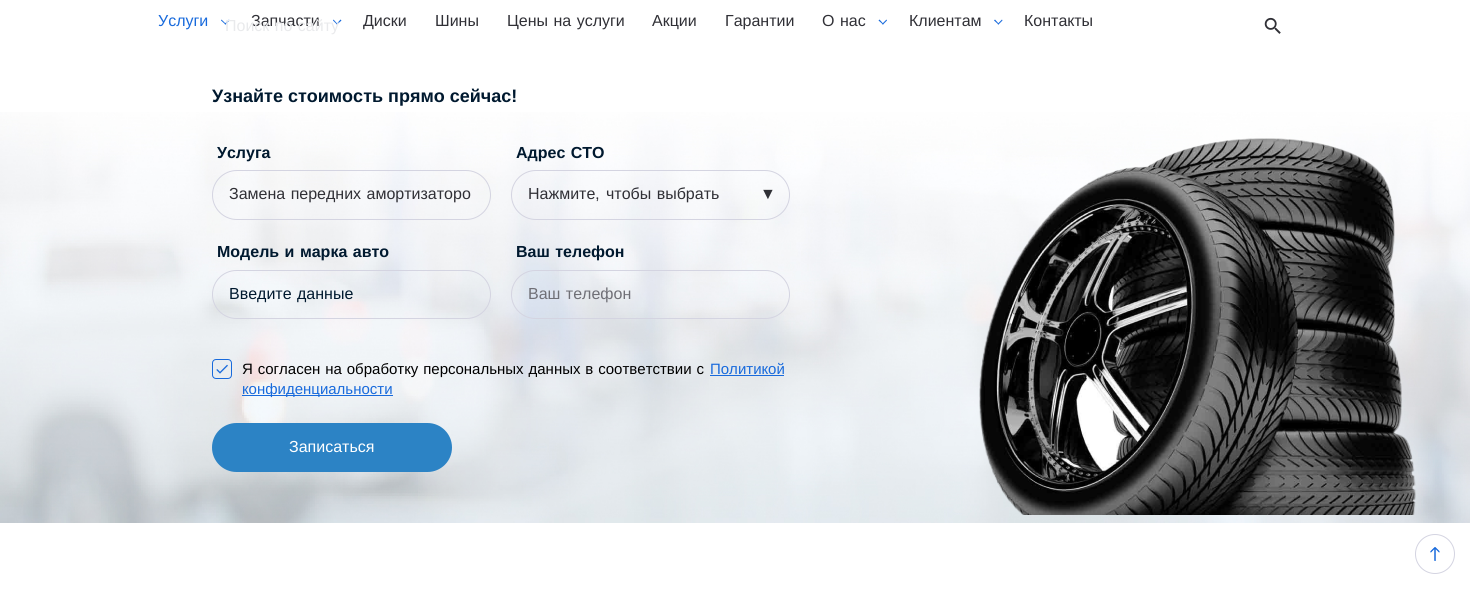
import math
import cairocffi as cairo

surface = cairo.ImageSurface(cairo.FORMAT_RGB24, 1470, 589)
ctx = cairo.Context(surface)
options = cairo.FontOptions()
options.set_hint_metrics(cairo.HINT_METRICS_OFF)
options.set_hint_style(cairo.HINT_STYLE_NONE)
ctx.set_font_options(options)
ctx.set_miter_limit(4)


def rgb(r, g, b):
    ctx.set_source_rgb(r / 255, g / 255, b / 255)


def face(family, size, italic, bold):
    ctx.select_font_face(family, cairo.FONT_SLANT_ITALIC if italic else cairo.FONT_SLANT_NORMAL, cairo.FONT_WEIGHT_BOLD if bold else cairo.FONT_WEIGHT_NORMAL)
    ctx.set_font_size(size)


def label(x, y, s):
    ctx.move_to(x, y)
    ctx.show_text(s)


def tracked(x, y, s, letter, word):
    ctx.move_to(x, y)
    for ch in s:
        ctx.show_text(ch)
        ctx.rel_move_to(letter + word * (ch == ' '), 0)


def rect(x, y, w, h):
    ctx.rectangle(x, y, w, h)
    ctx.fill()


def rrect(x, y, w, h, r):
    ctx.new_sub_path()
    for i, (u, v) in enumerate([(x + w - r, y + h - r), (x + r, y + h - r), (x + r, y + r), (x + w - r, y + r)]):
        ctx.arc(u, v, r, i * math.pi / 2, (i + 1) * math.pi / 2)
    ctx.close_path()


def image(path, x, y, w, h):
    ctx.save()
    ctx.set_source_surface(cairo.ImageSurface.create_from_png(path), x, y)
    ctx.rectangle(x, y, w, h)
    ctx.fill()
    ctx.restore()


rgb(255, 255, 255)
ctx.paint()
face('Liberation Sans', 16, 0, 0)
rgb(24, 106, 220)
label(158, 26, 'Услуги')
ctx.new_path()
ctx.move_to(224.5, 24)
ctx.line_to(229, 19.5)
ctx.line_to(229.5, 20.5)
ctx.line_to(225.5, 24.5)
ctx.close_path()
ctx.fill()
ctx.new_path()
ctx.move_to(221, 20.5)
ctx.line_to(221.5, 19.5)
ctx.line_to(226, 24)
ctx.line_to(225.5, 24.5)
ctx.close_path()
ctx.fill()
rgb(48, 48, 54)
label(251, 26, 'Запчасти')
rgb(24, 106, 220)
ctx.new_path()
ctx.move_to(336.5, 24)
ctx.line_to(340.5, 19.5)
ctx.line_to(341.5, 20.5)
ctx.line_to(337, 24.5)
ctx.close_path()
ctx.fill()
ctx.new_path()
ctx.move_to(333, 20.5)
ctx.line_to(333.5, 19.5)
ctx.line_to(337.5, 24)
ctx.line_to(337, 24.5)
ctx.close_path()
ctx.fill()
rgb(48, 48, 54)
label(363, 26, 'Диски')
label(435, 26, 'Шины')
tracked(507, 26, 'Цены на услуги', 0, 1)
label(652, 26, 'Акции')
label(725, 26, 'Гарантии')
tracked(822, 26, 'О нас', 0, 1)
rgb(24, 106, 220)
ctx.new_path()
ctx.move_to(882, 24)
ctx.line_to(886.5, 19.5)
ctx.line_to(887, 20.5)
ctx.line_to(883, 24.5)
ctx.close_path()
ctx.fill()
ctx.new_path()
ctx.move_to(878.5, 20.5)
ctx.line_to(879.5, 19.5)
ctx.line_to(883.5, 24)
ctx.line_to(883, 24.5)
ctx.close_path()
ctx.fill()
rgb(48, 48, 54)
label(909, 26, 'Клиентам')
rgb(24, 106, 220)
ctx.new_path()
ctx.move_to(997.5, 24)
ctx.line_to(1002, 19.5)
ctx.line_to(1002.5, 20.5)
ctx.line_to(998.5, 24.5)
ctx.close_path()
ctx.fill()
ctx.new_path()
ctx.move_to(994, 20.5)
ctx.line_to(995, 19.5)
ctx.line_to(999, 24)
ctx.line_to(998.5, 24.5)
ctx.close_path()
ctx.fill()
rgb(48, 48, 54)
label(1024, 26, 'Контакты')
rgb(233, 234, 236)
tracked(225, 31, 'Поиск по сайту', 0, 1)
image('image0.png', 1264, 17, 17, 17)
image('image1.png', 0, 112, 1470, 411)
face('Liberation Sans', 18, 0, 1)
rgb(0, 25, 47)
label(212, 102, 'Узнайте стоимость прямо сейчас!')
face('Liberation Sans', 16, 0, 1)
label(217, 158, 'Услуга')
rrect(212.5, 170.5, 278, 49, 24.5)
rgb(212, 212, 225)
ctx.set_line_width(1)
ctx.stroke()
face('Liberation Sans', 16, 0, 0)
rgb(48, 48, 54)
tracked(229, 199, 'Замена передних амортизаторо', 0, 1)
face('Liberation Sans', 16, 0, 1)
rgb(0, 25, 47)
tracked(516, 158, 'Адрес СТО', 0, 1)
rrect(511.5, 170.5, 278, 49, 24.5)
rgb(212, 212, 225)
ctx.stroke()
face('Liberation Sans', 16, 0, 0)
rgb(48, 48, 54)
label(528, 199, 'Нажмите')
face('Istok Web', 16, 0, 0)
label(595, 199, ',')
face('Liberation Sans', 16, 0, 0)
tracked(606, 199, 'чтобы выбрать', 0, 1)
label(760, 199, '▼')
face('Liberation Sans', 16, 0, 1)
rgb(0, 25, 47)
tracked(217, 257, 'Модель и марка авто', 0, 1)
rrect(212.5, 270.5, 278, 48, 24)
rgb(212, 212, 225)
ctx.stroke()
face('Liberation Sans', 16, 0, 0)
rgb(0, 25, 47)
tracked(229, 299, 'Введите данные', 0, 1)
face('Liberation Sans', 16, 0, 1)
tracked(516, 257, 'Ваш телефон', 0, 1)
rrect(511.5, 270.5, 278, 48, 24)
rgb(212, 212, 225)
ctx.stroke()
face('Liberation Sans', 16, 0, 0)
rgb(111, 111, 118)
tracked(528, 299, 'Ваш телефон', 0, 1)
rrect(212.5, 359.5, 19, 19, 3.5)
rgb(24, 106, 220)
ctx.stroke()
face('Liberation Sans', 15, 0, 0)
rgb(0, 0, 0)
tracked(242, 374, 'Я согласен на обработку персональных данных в соответствии с', 0, 0.75)
rgb(24, 106, 220)
label(710, 374, 'Политикой')
rect(710, 375, 74, 1)
image('image2.png', 216, 364, 12, 10)
rect(242, 395, 151, 1)
label(242, 394, 'конфиденциальности')
rgb(44, 131, 197)
rrect(212, 423, 240, 49, 24.5)
ctx.fill()
face('Liberation Sans', 16, 0, 0)
rgb(255, 255, 255)
label(289, 452, 'Записаться')
image('image3.png', 979, 138, 437, 377)
ctx.arc(1435, 554, 19.5, 0, 2 * math.pi)
rgb(212, 212, 225)
ctx.stroke()
image('image4.png', 1430, 547, 10, 14)
surface.write_to_png('render.png')
